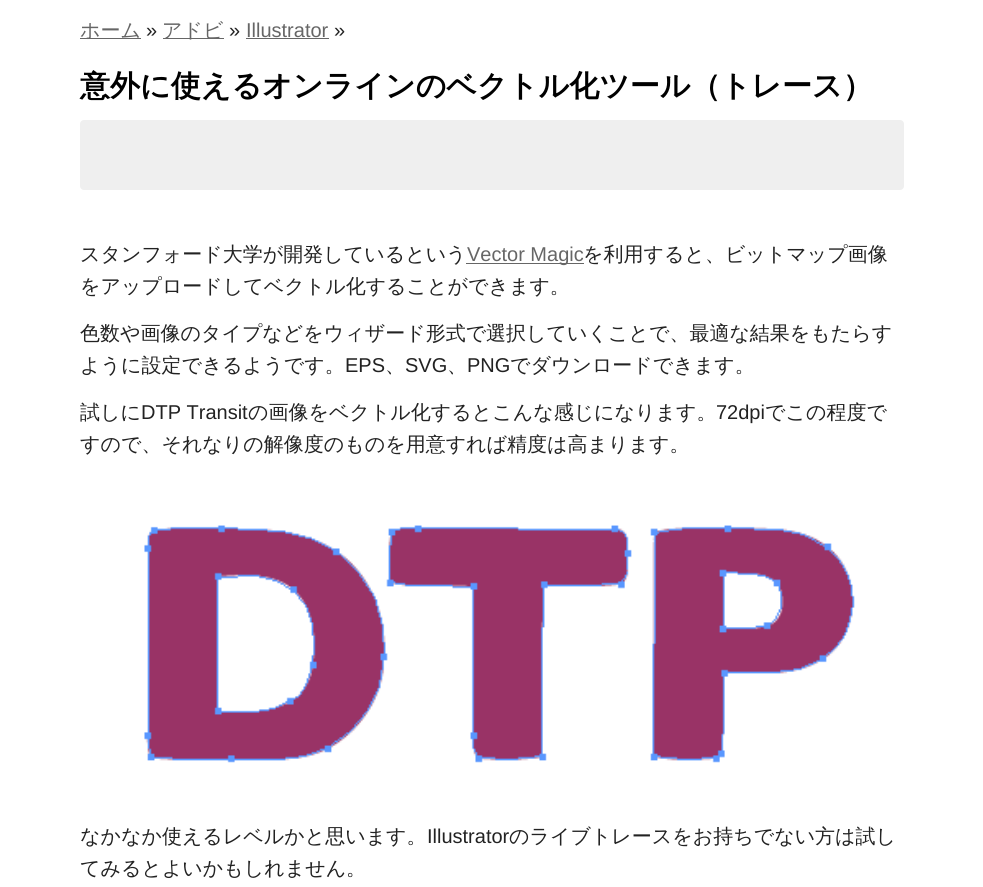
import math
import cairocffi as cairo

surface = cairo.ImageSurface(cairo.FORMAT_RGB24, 983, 887)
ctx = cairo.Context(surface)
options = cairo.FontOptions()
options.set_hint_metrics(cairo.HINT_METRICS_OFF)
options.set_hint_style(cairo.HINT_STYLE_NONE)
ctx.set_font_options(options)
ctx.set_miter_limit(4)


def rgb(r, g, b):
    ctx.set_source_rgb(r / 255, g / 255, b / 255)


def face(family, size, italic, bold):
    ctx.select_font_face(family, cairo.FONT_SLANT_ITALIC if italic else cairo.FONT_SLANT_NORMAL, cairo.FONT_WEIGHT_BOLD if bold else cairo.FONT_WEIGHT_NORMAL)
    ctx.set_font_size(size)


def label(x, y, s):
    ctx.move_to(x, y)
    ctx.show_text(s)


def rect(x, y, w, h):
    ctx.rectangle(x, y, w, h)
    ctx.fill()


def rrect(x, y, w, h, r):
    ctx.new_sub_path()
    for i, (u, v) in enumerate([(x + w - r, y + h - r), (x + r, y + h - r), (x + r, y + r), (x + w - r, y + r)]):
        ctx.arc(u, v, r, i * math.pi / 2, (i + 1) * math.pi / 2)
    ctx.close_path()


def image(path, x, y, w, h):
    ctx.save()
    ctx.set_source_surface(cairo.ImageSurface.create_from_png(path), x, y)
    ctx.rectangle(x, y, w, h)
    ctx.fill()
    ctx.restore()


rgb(255, 255, 255)
ctx.paint()
rgb(102, 102, 102)
rect(80, 38, 61, 1)
face('WenQuanYi Zen Hei Medium', 20, 0, 0)
label(80, 37, 'ホーム')
face('Liberation Sans', 20, 0, 0)
rgb(34, 34, 34)
label(146, 37, '»')
rgb(102, 102, 102)
rect(163, 38, 61, 1)
face('WenQuanYi Zen Hei Medium', 20, 0, 0)
label(162, 37, 'アドビ')
face('Liberation Sans', 20, 0, 0)
rgb(34, 34, 34)
label(229, 37, '»')
rgb(102, 102, 102)
label(246, 37, 'Illustrator')
rect(246, 38, 83, 1)
rgb(34, 34, 34)
label(334, 37, '»')
face('WenQuanYi Zen Hei', 30, 0, 1)
rgb(0, 0, 0)
label(80, 96, '意外に使えるオンラインのベクトル化ツール（トレース）')
rgb(239, 239, 239)
rrect(80, 120, 824, 70, 4)
ctx.fill()
face('WenQuanYi Zen Hei Medium', 20, 0, 0)
rgb(34, 34, 34)
label(80, 261, 'スタンフォード大学が開発しているという')
rgb(102, 102, 102)
rect(466, 263, 118, 1)
face('Liberation Sans', 20, 0, 0)
label(467, 261, 'Vector Magic')
face('WenQuanYi Zen Hei Medium', 20, 0, 0)
rgb(34, 34, 34)
label(583, 261, 'を利用すると、ビットマップ画像')
label(80, 293, 'をアップロードしてベクトル化することができます。')
label(80, 340, '色数や画像のタイプなどをウィザード形式で選択していくことで、最適な結果をもたらす')
label(80, 372, 'ように設定できるようです。')
face('Liberation Sans', 20, 0, 0)
label(345, 372, 'EPS')
face('WenQuanYi Zen Hei Medium', 20, 0, 0)
label(385, 372, '、')
face('Liberation Sans', 20, 0, 0)
label(405, 372, 'SVG')
face('WenQuanYi Zen Hei Medium', 20, 0, 0)
label(447, 372, '、')
face('Liberation Sans', 20, 0, 0)
label(467, 372, 'PNG')
face('WenQuanYi Zen Hei Medium', 20, 0, 0)
label(510, 372, 'でダウンロードできます。')
label(80, 419, '試しに')
face('Liberation Sans', 20, 0, 0)
label(141, 419, 'DTP Transit')
face('WenQuanYi Zen Hei Medium', 20, 0, 0)
label(248, 419, 'の画像をベクトル化するとこんな感じになります。')
face('Liberation Sans', 20, 0, 0)
label(716, 419, '72dpi')
face('WenQuanYi Zen Hei Medium', 20, 0, 0)
label(765, 419, 'でこの程度で')
label(80, 451, 'すので、それなりの解像度のものを用意すれば精度は高まります。')
image('image0.png', 144, 525, 711, 238)
label(80, 843, 'なかなか使えるレベルかと思います。')
face('Liberation Sans', 20, 0, 0)
label(427, 843, 'Illustrator')
face('WenQuanYi Zen Hei Medium', 20, 0, 0)
label(509, 843, 'のライブトレースをお持ちでない方は試し')
label(80, 875, 'てみるとよいかもしれません。')
surface.write_to_png('render.png')
